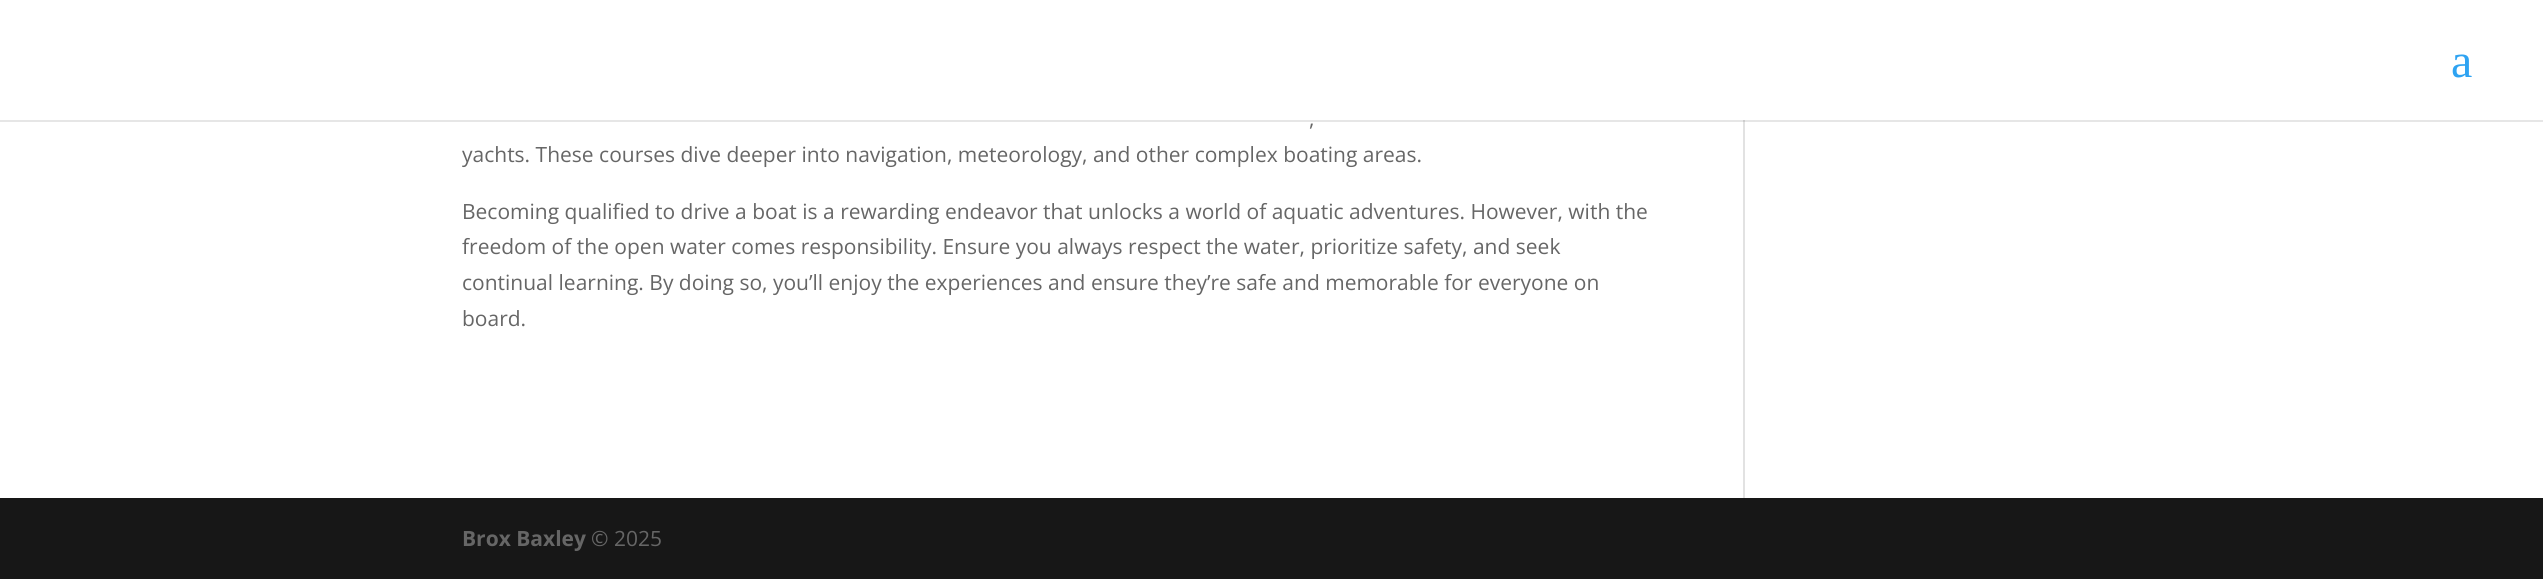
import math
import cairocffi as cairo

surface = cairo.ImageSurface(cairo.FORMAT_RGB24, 2543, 579)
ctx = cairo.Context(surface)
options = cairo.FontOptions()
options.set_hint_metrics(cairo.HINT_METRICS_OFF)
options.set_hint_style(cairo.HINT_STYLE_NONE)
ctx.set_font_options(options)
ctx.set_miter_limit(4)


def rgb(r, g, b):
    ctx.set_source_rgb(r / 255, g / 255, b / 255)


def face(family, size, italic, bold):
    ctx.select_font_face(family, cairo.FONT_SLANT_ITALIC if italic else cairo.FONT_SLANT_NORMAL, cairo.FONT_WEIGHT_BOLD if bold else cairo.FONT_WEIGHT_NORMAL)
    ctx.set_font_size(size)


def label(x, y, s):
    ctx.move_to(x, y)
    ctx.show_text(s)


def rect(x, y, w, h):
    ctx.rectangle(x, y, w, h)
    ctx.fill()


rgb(255, 255, 255)
ctx.paint()
rgb(226, 226, 226)
rect(1743, 120, 2, 378)
ctx.set_source_rgba(0, 0, 0, 0.1)
rect(0, 120, 2543, 2)
face('Liberation Serif', 48, 0, 0)
rgb(46, 163, 242)
label(2451, 77, 'a')
face('Open Sans', 21, 0, 0)
rgb(102, 102, 102)
label(1309, 126, ',')
label(462, 162, 'yachts. These courses dive deeper into navigation, meteorology, and other complex boating areas.')
label(462, 219, 'Becoming qualified to drive a boat is a rewarding endeavor that unlocks a world of aquatic adventures. However, with the')
label(462, 254, 'freedom of the open water comes responsibility. Ensure you always respect the water, prioritize safety, and seek')
label(462, 290, 'continual learning. By doing so, you’ll enjoy the experiences and ensure they’re safe and memorable for everyone on')
label(462, 326, 'board.')
rgb(23, 23, 23)
rect(0, 498, 2543, 81)
face('Open Sans', 21, 0, 1)
rgb(102, 102, 102)
label(462, 546, 'Brox Baxley')
face('Open Sans', 21, 0, 0)
label(591, 546, '© 2025')
surface.write_to_png('render.png')
